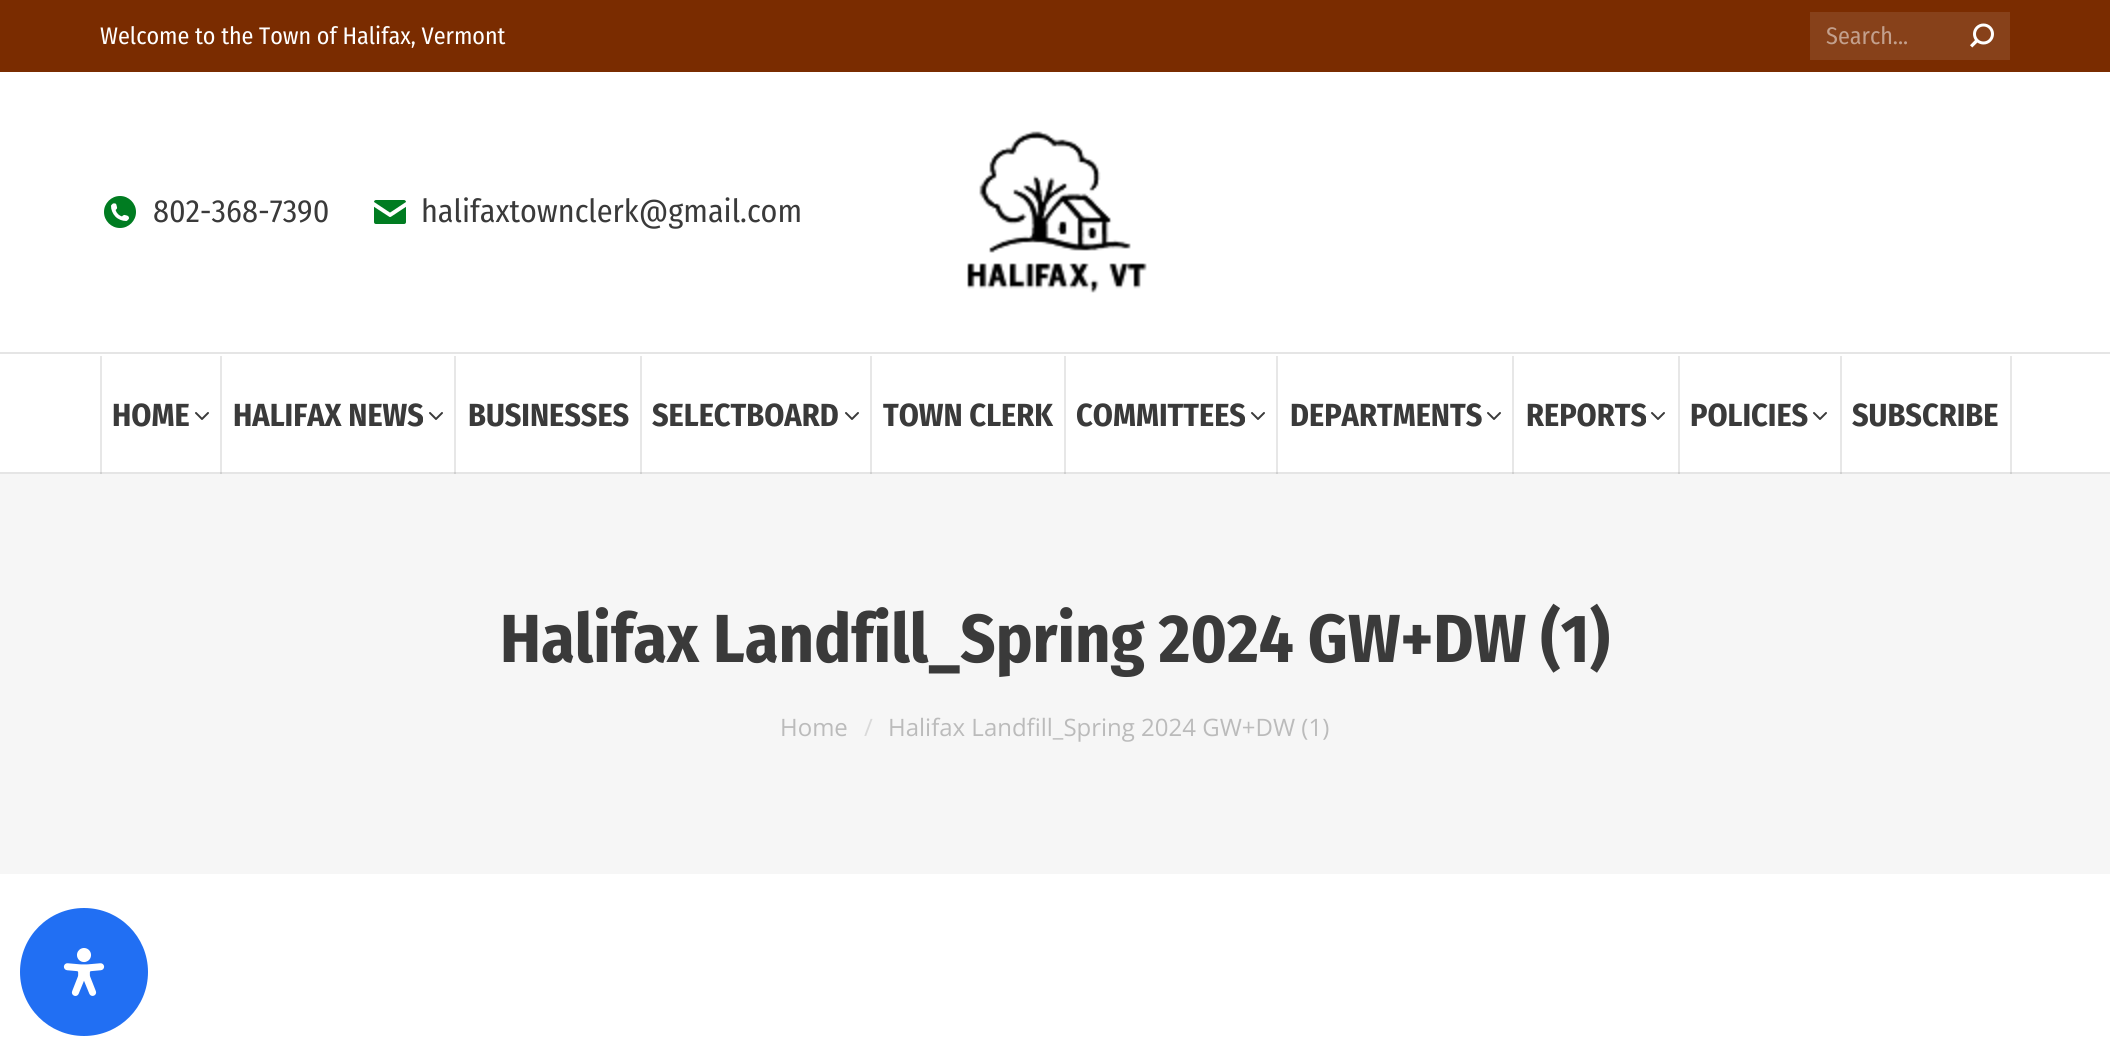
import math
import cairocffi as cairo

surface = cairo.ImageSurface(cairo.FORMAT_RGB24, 2110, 1055)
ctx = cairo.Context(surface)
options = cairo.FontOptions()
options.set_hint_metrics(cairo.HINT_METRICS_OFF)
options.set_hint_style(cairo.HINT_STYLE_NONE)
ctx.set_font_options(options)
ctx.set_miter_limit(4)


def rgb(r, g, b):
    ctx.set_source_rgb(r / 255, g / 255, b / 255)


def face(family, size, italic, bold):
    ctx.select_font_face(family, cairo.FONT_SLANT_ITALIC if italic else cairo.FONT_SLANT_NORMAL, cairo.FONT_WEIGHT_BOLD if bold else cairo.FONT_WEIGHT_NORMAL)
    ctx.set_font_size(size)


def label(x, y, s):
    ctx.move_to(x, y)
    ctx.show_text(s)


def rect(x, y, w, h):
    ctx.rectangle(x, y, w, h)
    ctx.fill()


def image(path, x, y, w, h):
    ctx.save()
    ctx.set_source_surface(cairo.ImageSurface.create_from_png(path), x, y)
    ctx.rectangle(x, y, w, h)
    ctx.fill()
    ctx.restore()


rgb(255, 255, 255)
ctx.paint()
rgb(231, 231, 231)
rect(2010, 356, 2, 118)
rect(1840, 356, 2, 118)
rect(1678, 356, 2, 118)
rect(1512, 356, 2, 118)
rect(1276, 356, 2, 118)
rect(1064, 356, 2, 118)
rect(870, 356, 2, 118)
rect(640, 356, 2, 118)
rect(454, 356, 2, 118)
rect(220, 356, 2, 118)
rect(100, 356, 2, 118)
rgb(229, 229, 229)
rect(0, 472, 2110, 2)
rgb(208, 208, 208)
rect(2010, 472, 2, 2)
rect(1840, 472, 2, 2)
rect(1678, 472, 2, 2)
rect(1512, 472, 2, 2)
rect(1276, 472, 2, 2)
rect(1064, 472, 2, 2)
rect(870, 472, 2, 2)
rect(640, 472, 2, 2)
rect(454, 472, 2, 2)
rect(220, 472, 2, 2)
rect(100, 472, 2, 2)
rgb(122, 44, 0)
rect(0, 0, 2110, 72)
face('Fira Sans Condensed', 24, 0, 0)
rgb(255, 255, 255)
label(100, 44, 'Welcome to the Town of Halifax, Vermont')
rgb(135, 65, 26)
rect(1810, 12, 200, 48)
rgb(195, 160, 141)
label(1826, 44, 'Search...')
image('image0.png', 1970, 23, 24, 25)
image('image1.png', 104, 196, 32, 32)
face('Fira Sans Condensed', 32, 0, 0)
rgb(58, 58, 58)
label(153, 222, '802-368-7390')
image('image2.png', 374, 200, 32, 24)
label(421, 222, 'halifaxtownclerk@gmail.com')
image('image3.png', 967, 131, 180, 162)
rgb(229, 229, 229)
rect(0, 352, 2110, 2)
face('Fira Sans Condensed', 32, 0, 1)
rgb(58, 58, 58)
label(112, 426, 'HOME')
image('image4.png', 195, 412, 14, 8)
label(233, 426, 'HALIFAX NEWS')
image('image4.png', 429, 412, 14, 8)
label(468, 426, 'BUSINESSES')
label(652, 426, 'SELECTBOARD')
image('image4.png', 845, 412, 14, 8)
label(883, 426, 'TOWN CLERK')
label(1076, 426, 'COMMITTEES')
image('image4.png', 1251, 412, 14, 8)
label(1290, 426, 'DEPARTMENTS')
image('image4.png', 1487, 412, 14, 8)
label(1526, 426, 'REPORTS')
image('image4.png', 1651, 412, 14, 8)
label(1690, 426, 'POLICIES')
image('image4.png', 1813, 412, 14, 8)
label(1852, 426, 'SUBSCRIBE')
rgb(246, 246, 246)
rect(0, 474, 2110, 400)
face('Fira Sans Condensed', 68, 0, 1)
rgb(58, 58, 58)
label(500, 662, 'Halifax Landfill_Spring 2024 GW+DW (1)')
face('Open Sans', 24, 0, 0)
rgb(187, 187, 187)
label(780, 736, 'Home')
rgb(217, 217, 217)
label(864, 736, '/')
rgb(187, 187, 187)
label(888, 736, 'Halifax Landfill_Spring 2024 GW+DW (1)')
rgb(33, 111, 243)
ctx.new_path()
ctx.arc(84, 972, 64, 0, 2 * math.pi)
ctx.fill()
image('image5.png', 63, 948, 42, 48)
surface.write_to_png('render.png')
